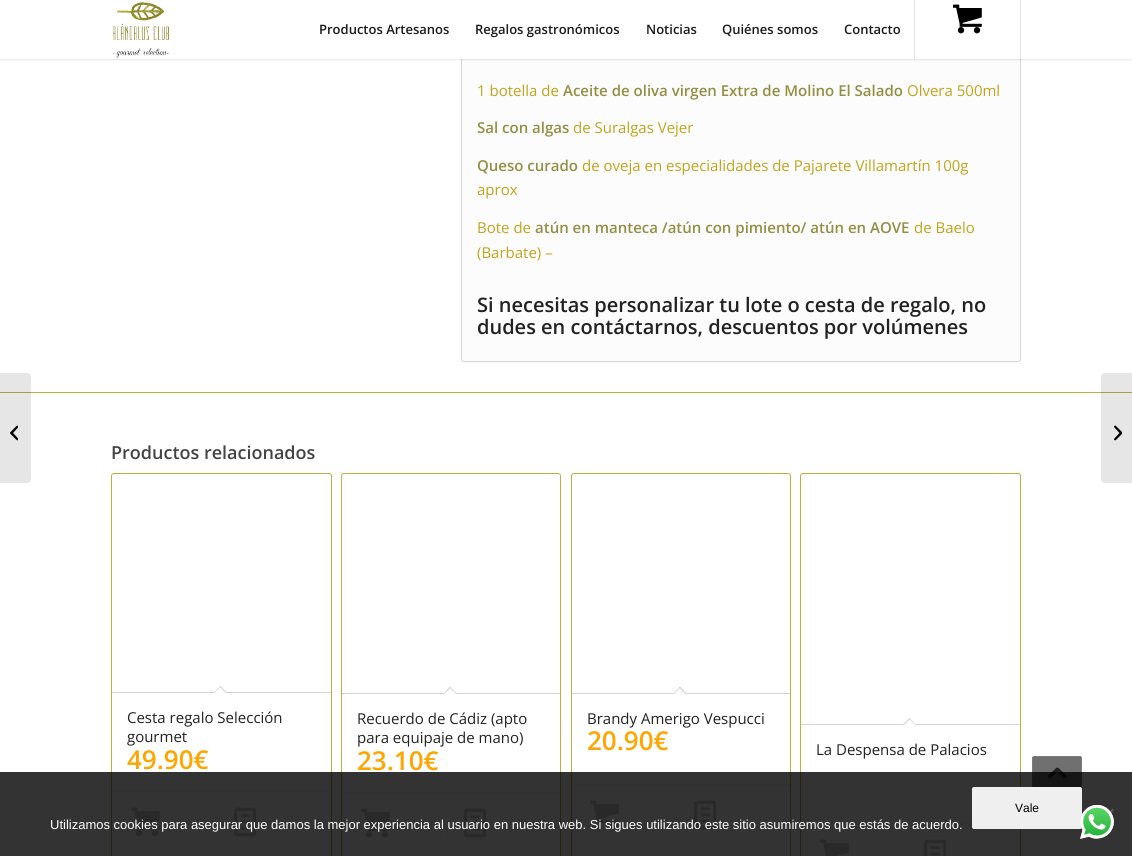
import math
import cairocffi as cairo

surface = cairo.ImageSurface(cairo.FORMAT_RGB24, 1132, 856)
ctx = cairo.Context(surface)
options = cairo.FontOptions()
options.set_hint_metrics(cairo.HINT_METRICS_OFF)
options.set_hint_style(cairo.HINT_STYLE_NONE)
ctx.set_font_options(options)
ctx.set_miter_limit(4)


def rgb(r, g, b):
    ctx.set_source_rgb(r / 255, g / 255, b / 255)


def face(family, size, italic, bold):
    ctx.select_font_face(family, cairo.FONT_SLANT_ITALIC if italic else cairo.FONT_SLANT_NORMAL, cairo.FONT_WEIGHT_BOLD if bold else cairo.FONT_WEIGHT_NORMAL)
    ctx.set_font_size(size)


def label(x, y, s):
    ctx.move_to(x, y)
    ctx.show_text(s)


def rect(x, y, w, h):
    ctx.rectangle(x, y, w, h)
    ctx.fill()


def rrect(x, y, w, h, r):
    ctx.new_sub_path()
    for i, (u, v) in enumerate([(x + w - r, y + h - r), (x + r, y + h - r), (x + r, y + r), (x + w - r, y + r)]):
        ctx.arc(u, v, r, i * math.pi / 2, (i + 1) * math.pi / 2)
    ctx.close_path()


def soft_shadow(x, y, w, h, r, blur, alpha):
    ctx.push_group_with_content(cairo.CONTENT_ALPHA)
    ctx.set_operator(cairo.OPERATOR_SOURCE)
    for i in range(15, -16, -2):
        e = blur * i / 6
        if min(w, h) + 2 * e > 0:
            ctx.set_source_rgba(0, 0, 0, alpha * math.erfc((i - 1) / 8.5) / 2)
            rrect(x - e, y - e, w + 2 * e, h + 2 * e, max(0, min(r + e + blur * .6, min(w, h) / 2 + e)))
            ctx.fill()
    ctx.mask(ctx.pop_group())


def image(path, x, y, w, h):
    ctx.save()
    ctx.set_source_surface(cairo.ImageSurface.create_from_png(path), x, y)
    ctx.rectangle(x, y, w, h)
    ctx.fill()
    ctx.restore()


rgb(255, 255, 255)
ctx.paint()
rgb(252, 252, 252)
ctx.new_path()
ctx.move_to(461.5, -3.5)
ctx.line_to(1020.5, -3.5)
ctx.line_to(1020.5, 359)
ctx.curve_to(1020.5, 360.5, 1019.5, 361.5, 1018, 361.5)
ctx.line_to(464, 361.5)
ctx.curve_to(462.5, 361.5, 461.5, 360.5, 461.5, 359)
ctx.close_path()
ctx.fill_preserve()
rgb(212, 212, 212)
ctx.set_line_width(1)
ctx.stroke()
rgb(0, 0, 0)
soft_shadow(-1, -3, 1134, 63, 0, 1, 0.1)
rgb(255, 255, 255)
rect(0, 0, 1132, 59)
image('image0.png', 112, 2, 57, 57)
face('Open Sans SemiBold', 13, 0, 0)
rgb(28, 27, 28)
label(319, 34, 'Productos Artesanos')
label(475, 34, 'Regalos gastronómicos')
label(646, 34, 'Noticias')
label(722, 34, 'Quiénes somos')
label(844, 34, 'Contacto')
rgb(232, 229, 230)
rect(1020, 0, 1, 59)
rect(914, 0, 1, 59)
image('image1.png', 953, 4, 29, 30)
rgb(190, 175, 64)
rect(0, 392, 1132, 1)
ctx.set_source_rgba(0, 0, 0, 0.1)
ctx.new_path()
ctx.move_to(0, 373)
ctx.line_to(27, 373)
ctx.curve_to(29, 373, 31, 375, 31, 377)
ctx.line_to(31, 479)
ctx.curve_to(31, 481, 29, 483, 27, 483)
ctx.line_to(0, 483)
ctx.close_path()
ctx.fill()
image('image2.png', 10, 425, 8, 16)
face('Open Sans', 15, 0, 0)
rgb(191, 164, 28)
label(477, 96, '1 botella de')
face('Open Sans SemiBold', 15, 0, 0)
rgb(146, 143, 68)
label(563, 96, 'Aceite de oliva virgen Extra de Molino El Salado')
face('Open Sans', 15, 0, 0)
rgb(191, 164, 28)
label(907, 96, 'Olvera 500ml')
face('Open Sans SemiBold', 15, 0, 0)
rgb(146, 143, 68)
label(477, 133, 'Sal con algas')
face('Open Sans', 15, 0, 0)
rgb(191, 164, 28)
label(573, 133, 'de Suralgas Vejer')
face('Open Sans SemiBold', 15, 0, 0)
rgb(146, 143, 68)
label(477, 171, 'Queso curado')
face('Open Sans', 15, 0, 0)
rgb(191, 164, 28)
label(582, 171, 'de oveja en especialidades de Pajarete Villamartín 100g')
label(477, 195, 'aprox')
label(477, 233, 'Bote de')
face('Open Sans SemiBold', 15, 0, 0)
rgb(146, 143, 68)
label(535, 233, 'atún en manteca /atún con pimiento/ atún en AOVE')
face('Open Sans', 15, 0, 0)
rgb(191, 164, 28)
label(914, 233, 'de Baelo')
label(477, 258, '(Barbate) –')
face('Open Sans SemiBold', 20, 0, 0)
rgb(34, 34, 34)
label(477, 312, 'Si necesitas personalizar tu lote o cesta de regalo, no')
label(477, 334, 'dudes en contáctarnos, descuentos por volúmenes')
face('Open Sans SemiBold', 18, 0, 0)
rgb(68, 68, 68)
label(111, 459, 'Productos relacionados')
rrect(111.5, 473.5, 220, 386, 2.5)
rgb(190, 175, 64)
ctx.stroke()
rgb(212, 212, 212)
rect(112, 692, 219, 1)
rgb(255, 255, 255)
ctx.new_path()
ctx.move_to(220.5, 686)
ctx.line_to(227.5, 693)
ctx.line_to(220.5, 700)
ctx.line_to(213.5, 693)
ctx.close_path()
ctx.fill()
rgb(212, 212, 212)
ctx.new_path()
ctx.move_to(220.5, 686)
ctx.line_to(227.5, 693)
ctx.line_to(226.5, 693.5)
ctx.line_to(219.5, 686.5)
ctx.close_path()
ctx.fill()
ctx.new_path()
ctx.move_to(220.5, 686)
ctx.line_to(221, 686.5)
ctx.line_to(214, 693.5)
ctx.line_to(213.5, 693)
ctx.close_path()
ctx.fill()
face('Open Sans', 15, 0, 0)
rgb(34, 34, 34)
label(127, 723, 'Cesta regalo Selección')
label(127, 742, 'gourmet')
face('Open Sans SemiBold', 26, 0, 0)
rgb(255, 165, 0)
label(127, 769, '49.90€')
rgb(246, 246, 246)
rect(112, 791, 219, 1)
image('image3.png', 131, 807, 29, 30)
rect(217, 824, 1, 14)
image('image4.png', 234, 807, 22, 30)
rrect(341.5, 473.5, 219, 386, 2.5)
rgb(190, 175, 64)
ctx.stroke()
rgb(212, 212, 212)
rect(342, 693, 218, 1)
rgb(255, 255, 255)
ctx.new_path()
ctx.move_to(450, 686.5)
ctx.line_to(457, 694)
ctx.line_to(450, 701)
ctx.line_to(443, 694)
ctx.close_path()
ctx.fill()
rgb(212, 212, 212)
ctx.new_path()
ctx.move_to(450, 686.5)
ctx.line_to(457, 694)
ctx.line_to(456.5, 694.5)
ctx.line_to(449.5, 687.5)
ctx.close_path()
ctx.fill()
ctx.new_path()
ctx.move_to(450, 686.5)
ctx.line_to(451, 687.5)
ctx.line_to(443.5, 694.5)
ctx.line_to(443, 694)
ctx.close_path()
ctx.fill()
face('Open Sans', 15, 0, 0)
rgb(34, 34, 34)
label(357, 724, 'Recuerdo de Cádiz (apto')
label(357, 743, 'para equipaje de mano)')
face('Open Sans SemiBold', 26, 0, 0)
rgb(255, 165, 0)
label(357, 770, '23.10€')
rgb(246, 246, 246)
rect(342, 792, 218, 1)
image('image3.png', 361, 808, 29, 30)
rect(447, 825, 1, 14)
image('image4.png', 464, 808, 22, 30)
rrect(571.5, 473.5, 219, 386, 2.5)
rgb(190, 175, 64)
ctx.stroke()
rgb(212, 212, 212)
rect(572, 693, 218, 1)
rgb(255, 255, 255)
ctx.new_path()
ctx.move_to(680, 686.5)
ctx.line_to(687, 694)
ctx.line_to(680, 701)
ctx.line_to(673, 694)
ctx.close_path()
ctx.fill()
rgb(212, 212, 212)
ctx.new_path()
ctx.move_to(680, 686.5)
ctx.line_to(687, 694)
ctx.line_to(686, 694.5)
ctx.line_to(679, 687.5)
ctx.close_path()
ctx.fill()
ctx.new_path()
ctx.move_to(680, 686.5)
ctx.line_to(680.5, 687.5)
ctx.line_to(673.5, 694.5)
ctx.line_to(673, 694)
ctx.close_path()
ctx.fill()
face('Open Sans', 15, 0, 0)
rgb(34, 34, 34)
label(587, 724, 'Brandy Amerigo Vespucci')
face('Open Sans SemiBold', 26, 0, 0)
rgb(255, 165, 0)
label(587, 750, '20.90€')
rgb(246, 246, 246)
rect(572, 784, 218, 1)
image('image3.png', 590, 800, 29, 30)
rect(677, 817, 1, 14)
image('image4.png', 694, 800, 22, 30)
rrect(800.5, 473.5, 220, 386, 2.5)
rgb(190, 175, 64)
ctx.stroke()
rgb(212, 212, 212)
rect(801, 724, 219, 1)
rgb(255, 255, 255)
ctx.new_path()
ctx.move_to(909.5, 718)
ctx.line_to(916.5, 725)
ctx.line_to(909.5, 732)
ctx.line_to(902.5, 725)
ctx.close_path()
ctx.fill()
rgb(212, 212, 212)
ctx.new_path()
ctx.move_to(909.5, 718)
ctx.line_to(916.5, 725)
ctx.line_to(916, 725.5)
ctx.line_to(909, 718.5)
ctx.close_path()
ctx.fill()
ctx.new_path()
ctx.move_to(909.5, 718)
ctx.line_to(910.5, 718.5)
ctx.line_to(903.5, 725.5)
ctx.line_to(902.5, 725)
ctx.close_path()
ctx.fill()
face('Open Sans', 15, 0, 0)
rgb(34, 34, 34)
label(816, 755, 'La Despensa de Palacios')
rgb(246, 246, 246)
rect(801, 823, 171, 1)
image('image5.png', 820, 839, 29, 17)
image('image6.png', 924, 839, 22, 17)
ctx.set_source_rgba(0, 0, 0, 0.1)
ctx.new_path()
ctx.move_to(1105, 373)
ctx.line_to(1132, 373)
ctx.line_to(1132, 483)
ctx.line_to(1105, 483)
ctx.curve_to(1103, 483, 1101, 481, 1101, 479)
ctx.line_to(1101, 377)
ctx.curve_to(1101, 375, 1103, 373, 1105, 373)
ctx.close_path()
ctx.fill()
image('image7.png', 1114, 425, 8, 16)
rgb(112, 112, 112)
rrect(1032.5, 756.5, 49, 49, 1.5)
ctx.fill_preserve()
rgb(124, 124, 124)
ctx.stroke()
image('image8.png', 1048, 767, 19, 12)
ctx.set_source_rgba(0, 0, 0, 0.8)
rect(0, 772, 1132, 84)
rgb(239, 239, 239)
rrect(972, 787, 110, 42, 2)
ctx.fill()
face('Liberation Sans', 12, 0, 0)
rgb(0, 0, 0)
label(1015, 812, 'Vale')
rgb(90, 90, 90)
ctx.new_path()
ctx.move_to(1112.5, 808.5)
ctx.line_to(1114, 810)
ctx.line_to(1103.5, 820.5)
ctx.line_to(1102, 819)
ctx.close_path()
ctx.fill()
face('Liberation Sans', 13, 0, 0)
rgb(255, 255, 255)
label(50, 829, 'Utilizamos cookies para asegurar que damos la mejor experiencia al usuario en nuestra web. Si sigues utilizando este sitio asumiremos que estás de acuerdo.')
image('image9.png', 1080, 805, 34, 34)
surface.write_to_png('render.png')
